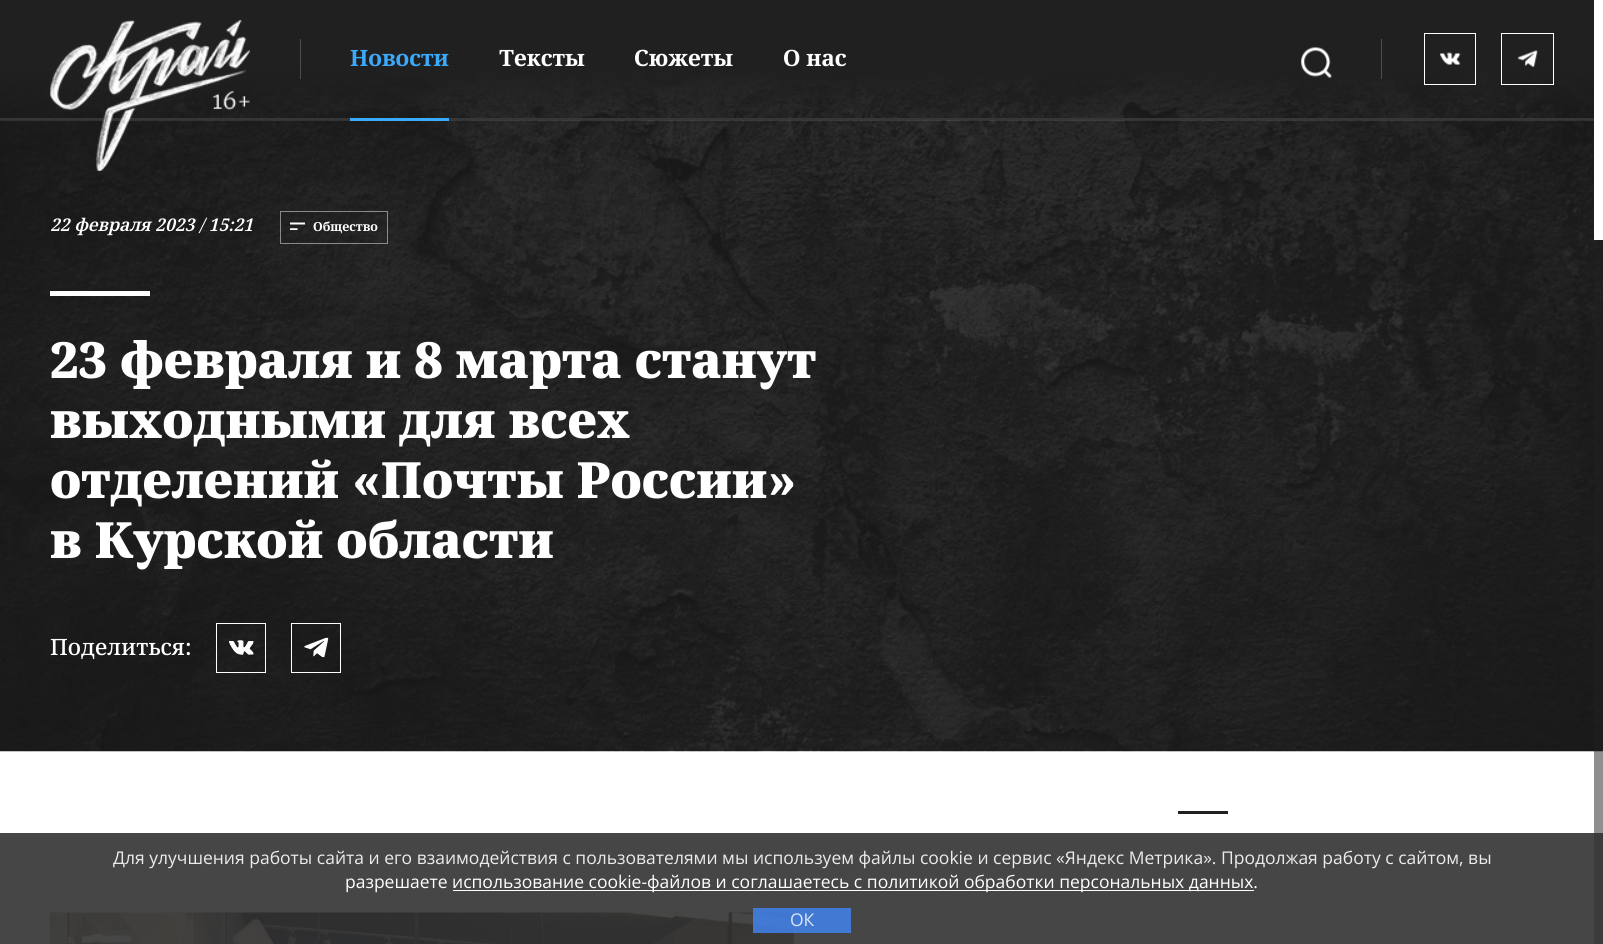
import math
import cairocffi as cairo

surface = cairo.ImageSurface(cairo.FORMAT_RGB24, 1603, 944)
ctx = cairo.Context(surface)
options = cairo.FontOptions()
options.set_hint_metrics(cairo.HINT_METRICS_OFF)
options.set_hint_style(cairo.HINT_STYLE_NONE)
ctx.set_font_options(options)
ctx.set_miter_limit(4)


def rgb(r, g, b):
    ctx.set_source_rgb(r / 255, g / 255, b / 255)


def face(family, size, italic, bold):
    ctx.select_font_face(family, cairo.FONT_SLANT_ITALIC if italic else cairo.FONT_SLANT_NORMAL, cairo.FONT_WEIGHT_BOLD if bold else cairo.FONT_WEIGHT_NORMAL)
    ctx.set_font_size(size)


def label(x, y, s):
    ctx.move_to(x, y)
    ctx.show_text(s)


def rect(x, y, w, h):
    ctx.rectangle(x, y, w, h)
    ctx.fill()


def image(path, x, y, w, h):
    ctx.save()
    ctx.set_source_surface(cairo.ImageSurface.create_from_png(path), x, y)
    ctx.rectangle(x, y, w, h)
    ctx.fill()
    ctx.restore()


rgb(255, 255, 255)
ctx.paint()
image('image4.png', 0, 0, 1603, 752)
ctx.set_source_rgba(1, 1, 1, 0.1)
rect(0, 118, 1594, 3)
image('image0.png', 50, 20, 200, 151)
rgb(76, 76, 76)
rect(300, 39, 1, 40)
rgb(58, 170, 252)
rect(350, 118, 99, 3)
face('Noto Serif', 22.5, 0, 1)
label(350, 66, 'Новости')
rgb(255, 255, 255)
label(499, 66, 'Тексты')
label(634, 66, 'Сюжеты')
label(783, 66, 'О нас')
image('image1.png', 1301, 47, 31, 31)
rgb(77, 77, 77)
rect(1381, 39, 1, 40)
ctx.rectangle(1424.5, 33.5, 51, 51)
rgb(255, 255, 255)
ctx.set_line_width(1)
ctx.stroke()
image('image2.png', 1440, 52, 21, 13)
ctx.rectangle(1501.5, 33.5, 52, 51)
ctx.stroke()
image('image3.png', 1517, 50, 21, 18)
face('Noto Serif SemiBold', 17.5, 1, 0)
label(50, 231, '22 февраля 2023 / 15:21')
ctx.rectangle(280.5, 211.5, 107, 32)
ctx.set_source_rgba(1, 1, 1, 0.47)
ctx.stroke()
image('image5.png', 290, 222, 15, 8)
face('Noto Serif', 12.5, 0, 1)
rgb(255, 255, 255)
label(313, 231, 'Общество')
rect(50, 291, 100, 5)
face('Noto Serif Black', 50, 0, 0)
label(50, 378, '23 февраля и 8 марта станут')
label(50, 438, 'выходными для всех')
label(50, 498, 'отделений «Почты России»')
label(50, 558, 'в Курской области')
face('Noto Serif Medium', 22.5, 0, 0)
label(50, 655, 'Поделиться:')
ctx.rectangle(216.5, 623.5, 49, 49)
ctx.stroke()
image('image6.png', 229, 640, 25, 15)
ctx.rectangle(291.5, 623.5, 49, 49)
ctx.stroke()
image('image7.png', 304, 637, 25, 21)
rgb(32, 32, 32)
rect(1178, 811, 50, 3)
image('image8.png', 50, 912, 744, 32)
ctx.set_source_rgba(0.125, 0.125, 0.125, 0.5)
rect(1594, 252, 9, 692)
rgb(255, 255, 255)
rect(1594, 0, 9, 240)
ctx.set_source_rgba(0.196, 0.196, 0.196, 0.9)
rect(0, 833, 1603, 111)
face('Open Sans', 17.5, 0, 0)
rgb(236, 236, 236)
label(113, 864, 'Для улучшения работы сайта и его взаимодействия с пользователями мы используем файлы cookie и сервис «Яндекс Метрика». Продолжая работу с сайтом, вы')
rgb(255, 255, 255)
label(345, 888, 'разрешаете')
rect(453, 890, 801, 1)
label(452, 888, 'использование cookie-файлов и соглашаетесь с политикой обработки персональных данных.')
ctx.set_source_rgba(0.259, 0.522, 0.957, 0.81)
rect(753, 908, 98, 25)
rgb(219, 230, 247)
label(790, 926, 'ОК')
surface.write_to_png('render.png')
